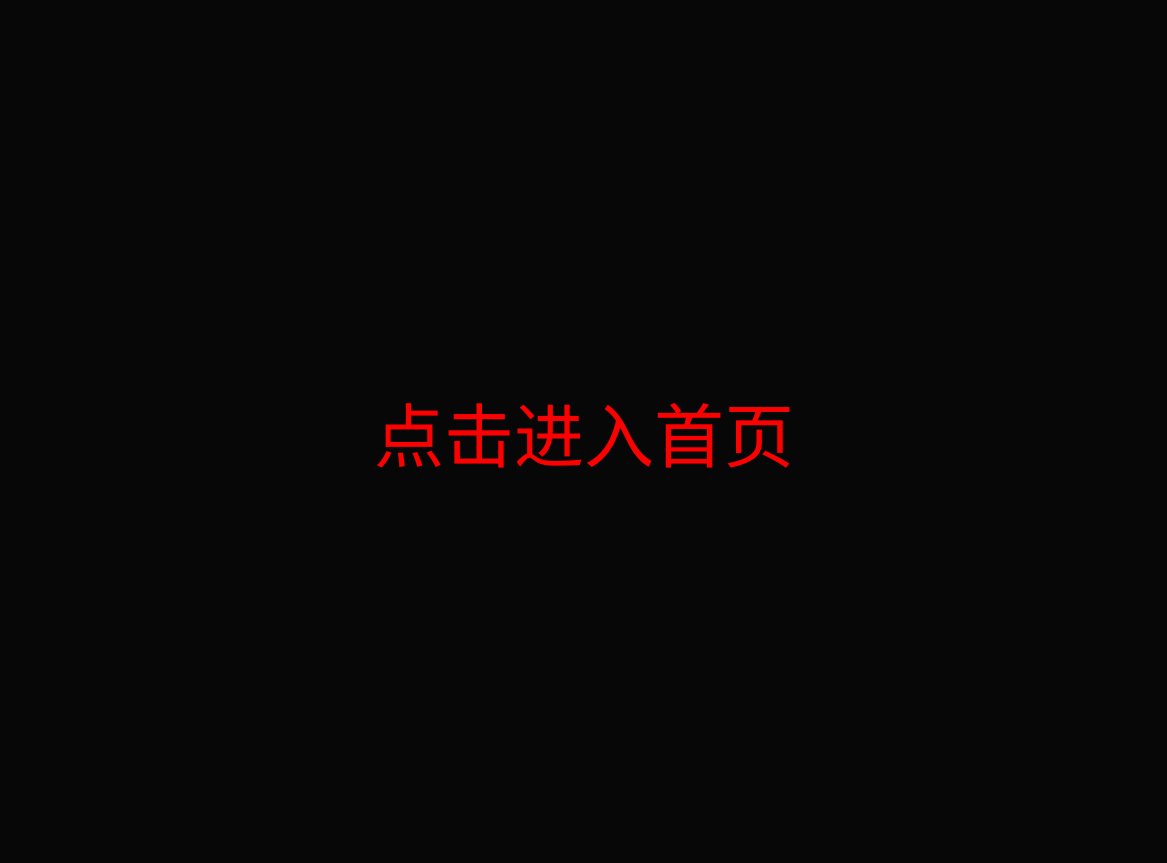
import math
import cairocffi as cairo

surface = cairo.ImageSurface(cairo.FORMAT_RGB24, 1167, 863)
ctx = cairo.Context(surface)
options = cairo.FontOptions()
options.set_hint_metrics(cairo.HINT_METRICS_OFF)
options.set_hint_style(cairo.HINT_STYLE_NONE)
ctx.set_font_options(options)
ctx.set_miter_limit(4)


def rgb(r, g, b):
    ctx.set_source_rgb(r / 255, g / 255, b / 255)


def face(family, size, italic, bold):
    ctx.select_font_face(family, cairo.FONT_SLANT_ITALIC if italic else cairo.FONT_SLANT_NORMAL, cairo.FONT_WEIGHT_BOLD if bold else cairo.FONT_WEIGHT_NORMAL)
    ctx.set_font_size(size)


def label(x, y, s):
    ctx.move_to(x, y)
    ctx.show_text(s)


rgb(7, 7, 7)
ctx.paint()
face('Noto Sans CJK SC', 70, 0, 0)
rgb(255, 0, 0)
label(374, 462, '点击进入首页')
surface.write_to_png('render.png')
